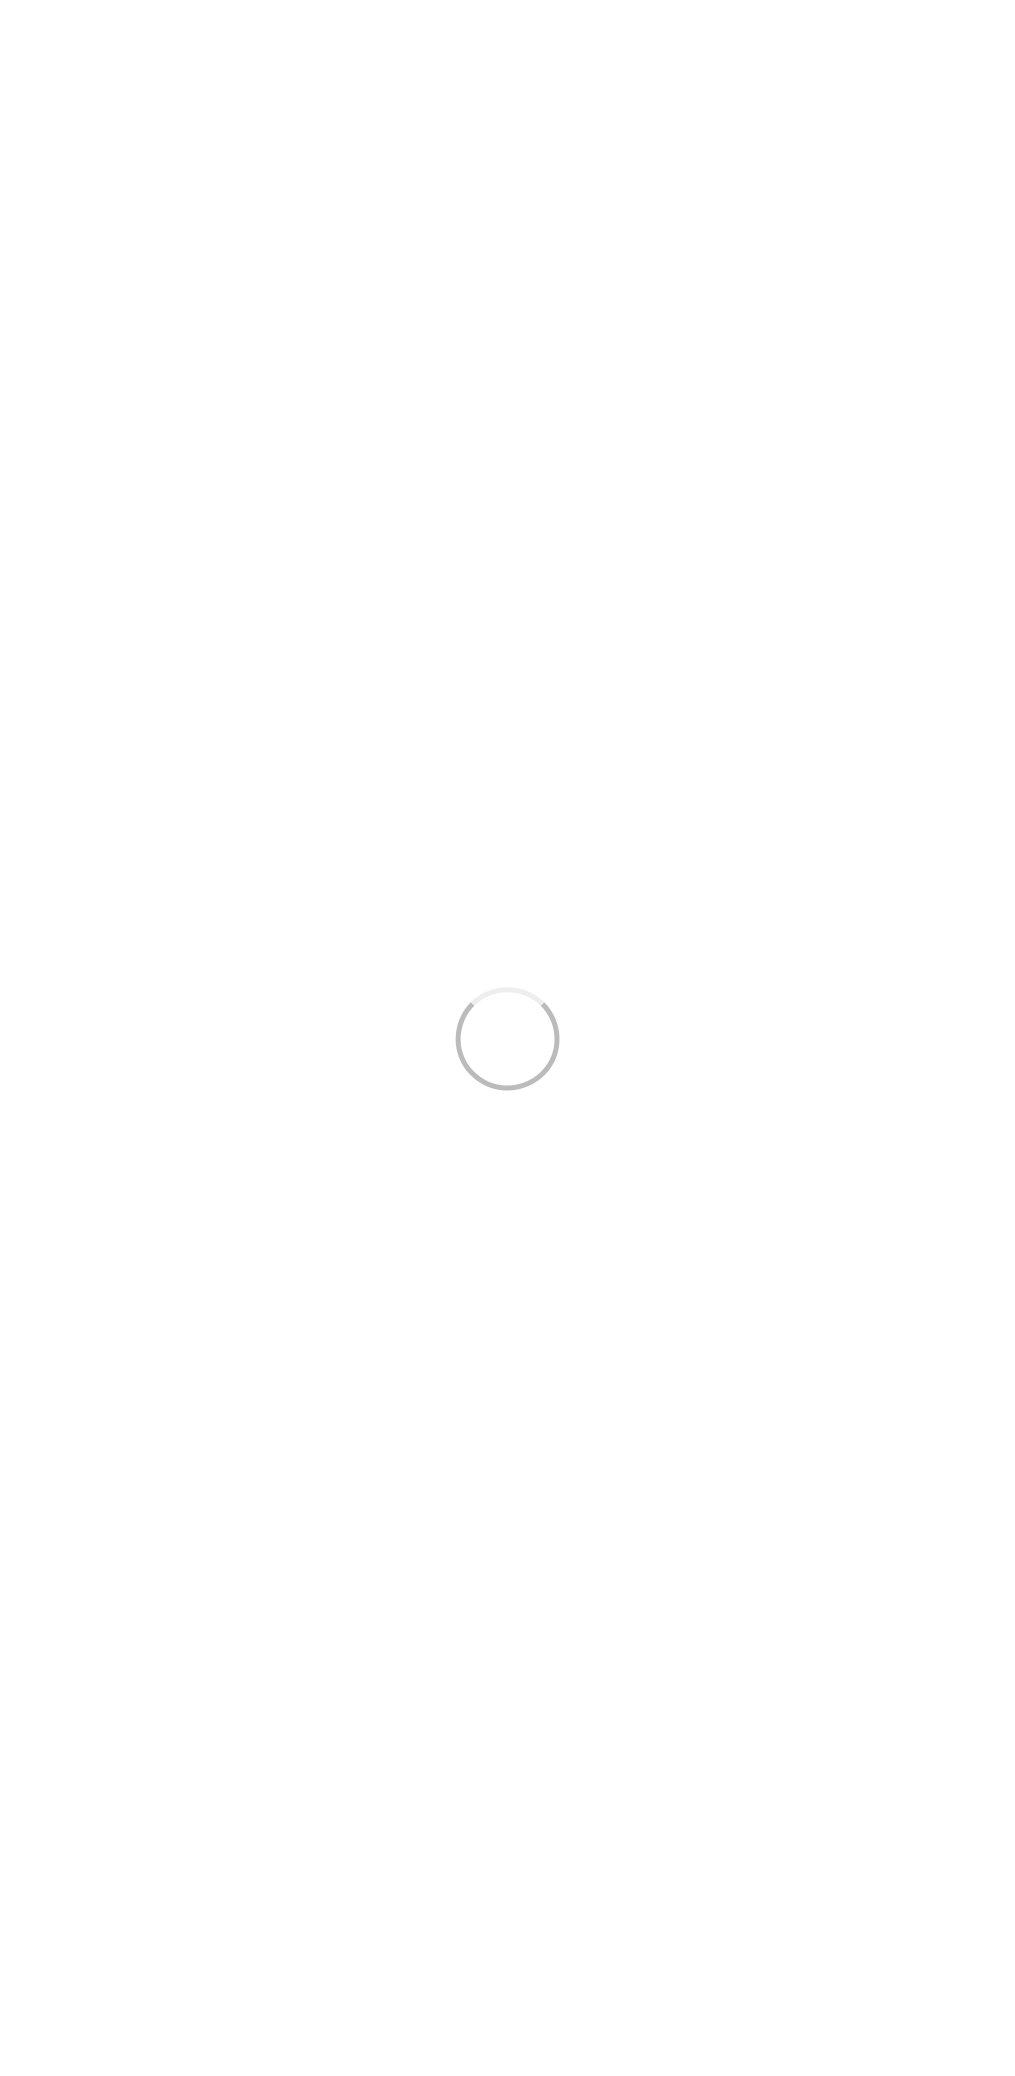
import math
import cairocffi as cairo

surface = cairo.ImageSurface(cairo.FORMAT_RGB24, 1015, 2076)
ctx = cairo.Context(surface)
options = cairo.FontOptions()
options.set_hint_metrics(cairo.HINT_METRICS_OFF)
options.set_hint_style(cairo.HINT_STYLE_NONE)
ctx.set_font_options(options)
ctx.set_miter_limit(4)


def rgb(r, g, b):
    ctx.set_source_rgb(r / 255, g / 255, b / 255)


rgb(255, 255, 255)
ctx.paint()
ctx.new_path()
ctx.move_to(472.5, 1004)
ctx.curve_to(491.5, 985, 523.5, 985, 542.5, 1004)
rgb(238, 238, 238)
ctx.set_line_width(5)
ctx.stroke()
ctx.new_path()
ctx.move_to(542.5, 1004)
ctx.curve_to(551.5, 1013, 557, 1025.5, 557, 1039)
ctx.curve_to(557, 1082.5, 503.5, 1104.5, 472.5, 1073.5)
ctx.curve_to(465.5, 1067, 461, 1058, 459, 1048.5)
ctx.curve_to(456, 1032.5, 461, 1015.5, 472.5, 1004)
rgb(187, 187, 187)
ctx.stroke()
surface.write_to_png('render.png')
